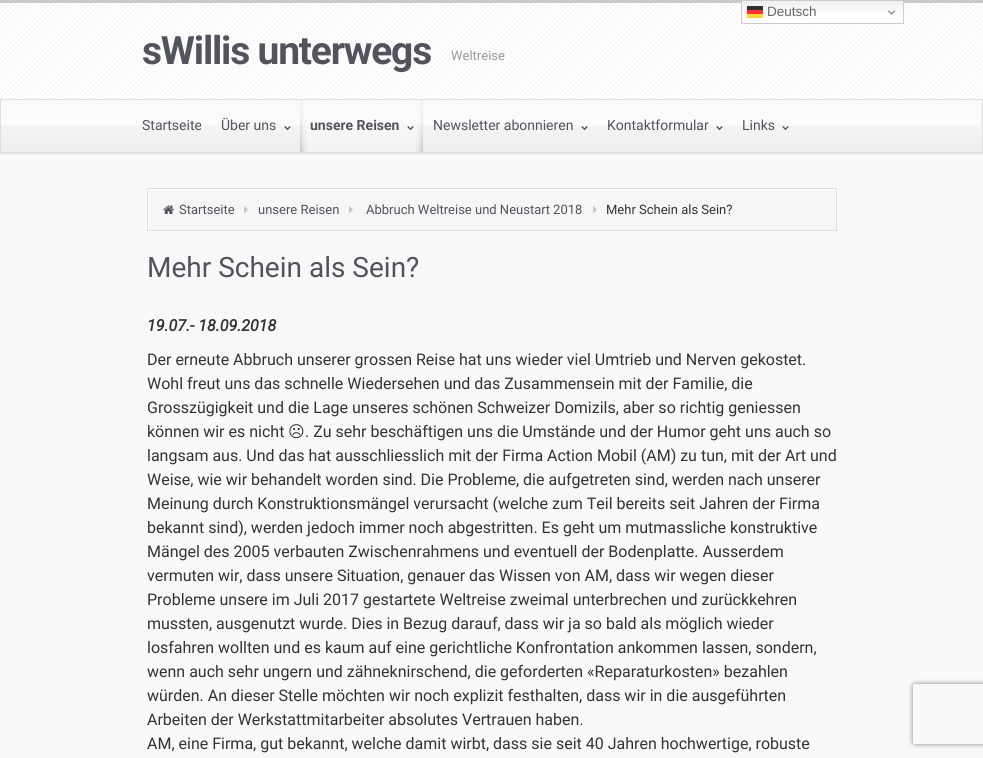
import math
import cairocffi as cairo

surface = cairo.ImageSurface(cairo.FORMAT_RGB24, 983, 758)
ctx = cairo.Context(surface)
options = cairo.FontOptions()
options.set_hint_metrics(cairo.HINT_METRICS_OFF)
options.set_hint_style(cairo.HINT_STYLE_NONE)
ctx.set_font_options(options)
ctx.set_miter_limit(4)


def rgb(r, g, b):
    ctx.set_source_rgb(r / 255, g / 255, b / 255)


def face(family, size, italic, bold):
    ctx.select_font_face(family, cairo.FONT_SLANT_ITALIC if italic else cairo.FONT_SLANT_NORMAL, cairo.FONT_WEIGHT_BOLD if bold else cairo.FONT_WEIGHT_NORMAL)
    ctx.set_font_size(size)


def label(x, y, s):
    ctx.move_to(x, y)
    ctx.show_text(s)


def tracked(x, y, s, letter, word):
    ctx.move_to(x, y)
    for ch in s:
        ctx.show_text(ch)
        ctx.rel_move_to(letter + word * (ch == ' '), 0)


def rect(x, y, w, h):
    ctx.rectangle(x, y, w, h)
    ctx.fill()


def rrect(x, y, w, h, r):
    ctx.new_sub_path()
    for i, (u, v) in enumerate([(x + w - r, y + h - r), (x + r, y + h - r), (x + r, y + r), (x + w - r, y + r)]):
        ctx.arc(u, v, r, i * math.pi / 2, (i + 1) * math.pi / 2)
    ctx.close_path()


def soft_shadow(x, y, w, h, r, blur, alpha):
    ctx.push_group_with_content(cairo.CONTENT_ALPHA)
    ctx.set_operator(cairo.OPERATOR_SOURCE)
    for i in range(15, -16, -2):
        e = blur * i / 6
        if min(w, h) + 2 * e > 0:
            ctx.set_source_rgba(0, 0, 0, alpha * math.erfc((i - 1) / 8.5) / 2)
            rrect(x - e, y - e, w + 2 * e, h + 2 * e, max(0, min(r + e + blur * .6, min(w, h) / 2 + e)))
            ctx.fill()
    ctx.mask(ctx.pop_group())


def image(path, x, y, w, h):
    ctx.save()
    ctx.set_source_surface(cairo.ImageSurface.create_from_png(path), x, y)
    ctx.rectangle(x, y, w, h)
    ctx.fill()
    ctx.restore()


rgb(249, 249, 249)
ctx.paint()
image('image1.png', 0, 0, 983, 99)
ctx.set_source_rgba(0, 0, 0, 0.2)
rect(0, 0, 983, 3)
gradient = cairo.LinearGradient(823, 0, 823, 24)
gradient.add_color_stop_rgba(0, 0.937, 0.937, 0.937, 1)
gradient.add_color_stop_rgba(0.7, 1, 1, 1, 1)
ctx.set_source(gradient)
rect(742, 1, 161, 22)
ctx.rectangle(741.5, 0.5, 162, 23)
rgb(204, 204, 204)
ctx.set_line_width(1)
ctx.stroke()
ctx.set_source_rgba(0, 0, 0, 0.8)
rect(747, 6, 16, 4)
face('Liberation Sans', 13.5, 0, 0)
rgb(102, 102, 102)
label(767, 16, 'Deutsch')
ctx.set_source_rgba(1, 0, 0, 0.8)
rect(747, 10, 16, 4)
image('image0.png', 888, 10, 7, 5)
rgb(255, 214, 51)
rect(747, 14, 16, 4)
face('Roboto', 39, 0, 1)
rgb(81, 84, 92)
tracked(142, 64, 'sWillis unterwegs', -1.2, 0)
face('Roboto', 13, 0, 0)
rgb(153, 153, 153)
label(451, 60, 'Weltreise')
rgb(0, 0, 0)
soft_shadow(0, 100, 983, 54, 0, 1, 0.1)
image('image2.png', 1, 101, 981, 51)
rgb(251, 251, 251)
rect(1, 100, 981, 1)
ctx.rectangle(0.5, 99.5, 982, 53)
rgb(224, 221, 221)
ctx.stroke()
face('Roboto', 14, 0, 0)
rgb(81, 84, 92)
label(142, 130, 'Startseite')
label(221, 130, 'Über uns')
image('image3.png', 284, 126, 7, 5)
ctx.set_source_rgba(1, 1, 1, 0.3)
rect(300, 125, 123, 27)
image('image4.png', 300, 100, 7, 52)
face('Roboto', 14, 0, 1)
rgb(81, 84, 92)
label(310, 130, 'unsere Reisen')
image('image5.png', 407, 126, 7, 5)
image('image6.png', 416, 100, 7, 52)
face('Roboto', 14, 0, 0)
label(433, 130, 'Newsletter abonnieren')
image('image7.png', 581, 126, 7, 5)
label(607, 130, 'Kontaktformular')
image('image3.png', 716, 126, 7, 5)
label(742, 130, 'Links')
image('image8.png', 782, 126, 7, 5)
rgb(246, 246, 246)
rect(149, 190, 687, 40)
ctx.save()
ctx.rectangle(148, 189, 688, 41)
ctx.clip()
rgb(254, 254, 254)
ctx.set_fill_rule(cairo.FILL_RULE_EVEN_ODD)
ctx.new_path()
ctx.move_to(49, 90)
ctx.line_to(935, 90)
ctx.line_to(935, 329)
ctx.line_to(49, 329)
ctx.close_path()
ctx.move_to(149, 190)
ctx.line_to(837, 190)
ctx.line_to(837, 231)
ctx.line_to(149, 231)
ctx.close_path()
ctx.fill()
ctx.restore()
ctx.rectangle(147.5, 188.5, 689, 42)
rgb(224, 221, 221)
ctx.stroke()
image('image9.png', 163, 205, 11, 9)
face('Roboto', 13, 0, 0)
rgb(81, 84, 92)
label(179, 214, 'Startseite')
image('image10.png', 244, 206, 4, 7)
label(258, 214, 'unsere Reisen')
image('image10.png', 349, 206, 4, 7)
label(366, 214, 'Abbruch Weltreise und Neustart 2018')
image('image10.png', 593, 206, 4, 7)
rgb(51, 51, 51)
label(606, 214, 'Mehr Schein als Sein?')
face('Roboto', 28, 0, 0)
rgb(81, 84, 92)
label(147, 277, 'Mehr Schein als Sein?')
face('Roboto', 16, 1, 1)
rgb(51, 51, 51)
label(147, 331, '19.07.- 18.09.2018')
face('Roboto', 16, 0, 0)
label(147, 365, 'Der erneute Abbruch unserer grossen Reise hat uns wieder viel Umtrieb und Nerven gekostet.')
label(147, 389, 'Wohl freut uns das schnelle Wiedersehen und das Zusammensein mit der Familie, die')
label(147, 413, 'Grosszügigkeit und die Lage unseres schönen Schweizer Domizils, aber so richtig geniessen')
label(147, 437, 'können wir es nicht')
face('DejaVu Sans', 16, 0, 0)
label(288, 437, '☹')
face('Roboto', 16, 0, 0)
label(305, 437, '. Zu sehr beschäftigen uns die Umstände und der Humor geht uns auch so')
label(147, 461, 'langsam aus. Und das hat ausschliesslich mit der Firma Action Mobil (AM) zu tun, mit der Art und')
label(147, 485, 'Weise, wie wir behandelt worden sind. Die Probleme, die aufgetreten sind, werden nach unserer')
label(147, 509, 'Meinung durch Konstruktionsmängel verursacht (welche zum Teil bereits seit Jahren der Firma')
label(147, 533, 'bekannt sind), werden jedoch immer noch abgestritten. Es geht um mutmassliche konstruktive')
label(147, 557, 'Mängel des 2005 verbauten Zwischenrahmens und eventuell der Bodenplatte. Ausserdem')
label(147, 581, 'vermuten wir, dass unsere Situation, genauer das Wissen von AM, dass wir wegen dieser')
label(147, 605, 'Probleme unsere im Juli 2017 gestartete Weltreise zweimal unterbrechen und zurückkehren')
label(147, 629, 'mussten, ausgenutzt wurde. Dies in Bezug darauf, dass wir ja so bald als möglich wieder')
label(147, 653, 'losfahren wollten und es kaum auf eine gerichtliche Konfrontation ankommen lassen, sondern,')
label(147, 677, 'wenn auch sehr ungern und zähneknirschend, die geforderten «Reparaturkosten» bezahlen')
label(147, 701, 'würden. An dieser Stelle möchten wir noch explizit festhalten, dass wir in die ausgeführten')
label(147, 725, 'Arbeiten der Werkstattmitarbeiter absolutes Vertrauen haben.')
label(147, 749, 'AM, eine Firma, gut bekannt, welche damit wirbt, dass sie seit 40 Jahren hochwertige, robuste')
ctx.save()
ctx.set_fill_rule(cairo.FILL_RULE_EVEN_ODD)
ctx.new_path()
ctx.move_to(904, 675)
ctx.line_to(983, 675)
ctx.line_to(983, 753)
ctx.line_to(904, 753)
ctx.close_path()
ctx.move_to(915, 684)
ctx.line_to(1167, 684)
ctx.curve_to(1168, 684, 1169, 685, 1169, 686)
ctx.line_to(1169, 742)
ctx.curve_to(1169, 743, 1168, 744, 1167, 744)
ctx.line_to(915, 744)
ctx.curve_to(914, 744, 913, 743, 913, 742)
ctx.line_to(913, 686)
ctx.curve_to(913, 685, 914, 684, 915, 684)
ctx.close_path()
ctx.clip()
rgb(128, 128, 128)
soft_shadow(913, 684, 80, 60, 2, 2.5, 1)
ctx.restore()
surface.write_to_png('render.png')
